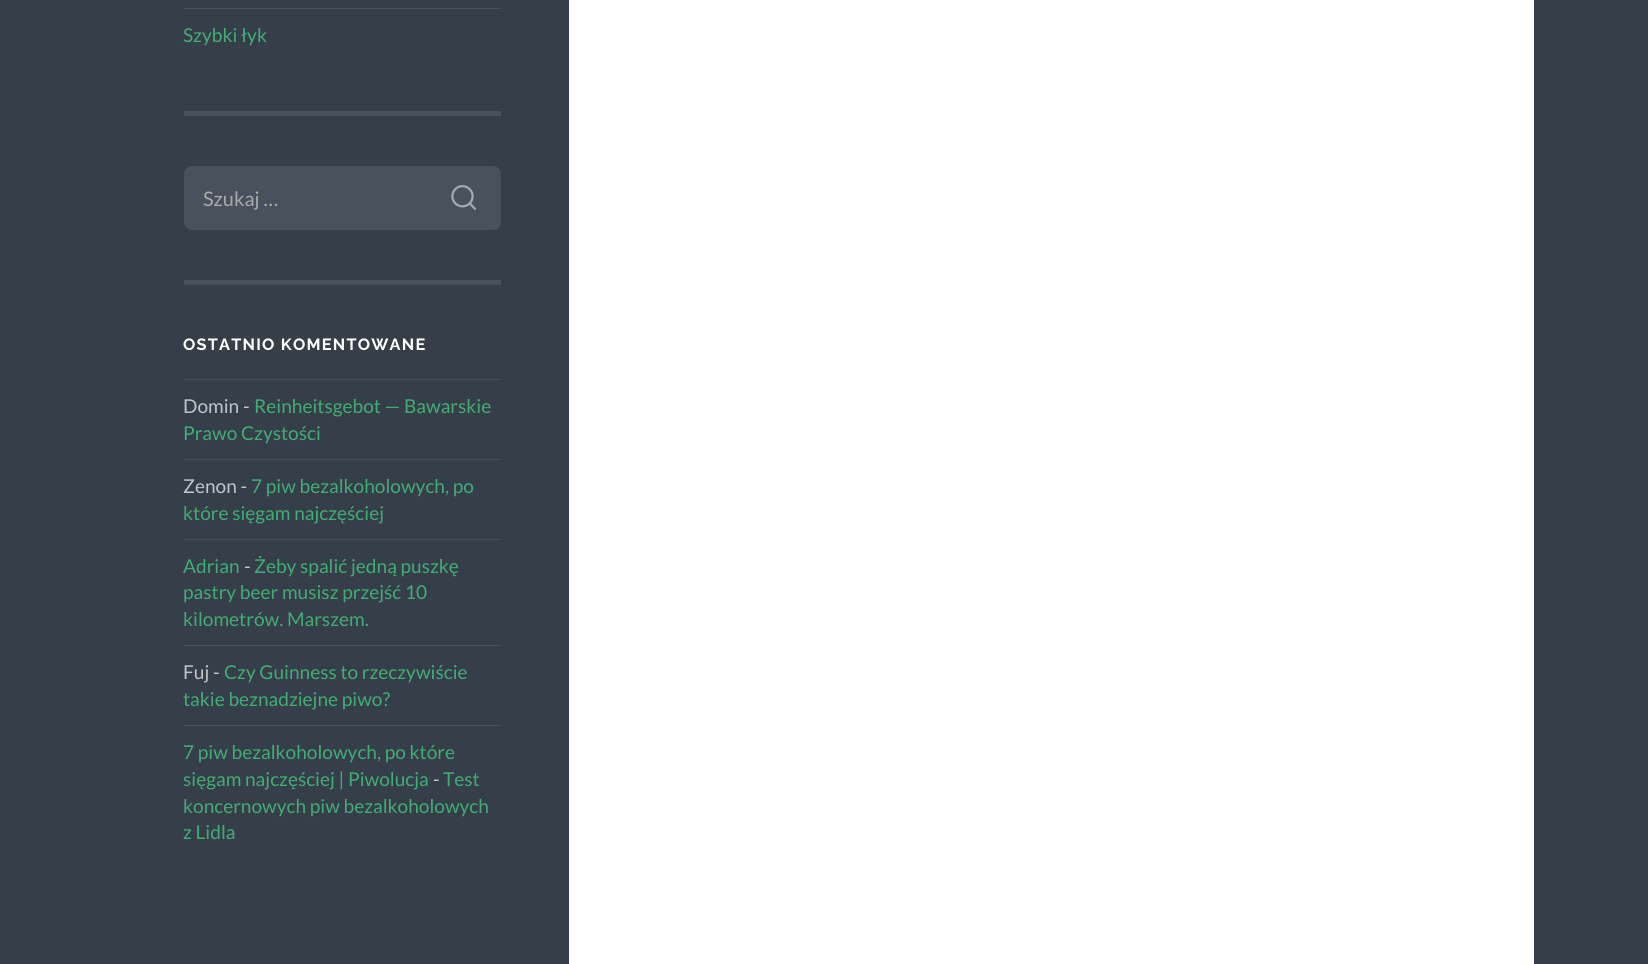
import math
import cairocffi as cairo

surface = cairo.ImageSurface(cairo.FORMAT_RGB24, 1648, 964)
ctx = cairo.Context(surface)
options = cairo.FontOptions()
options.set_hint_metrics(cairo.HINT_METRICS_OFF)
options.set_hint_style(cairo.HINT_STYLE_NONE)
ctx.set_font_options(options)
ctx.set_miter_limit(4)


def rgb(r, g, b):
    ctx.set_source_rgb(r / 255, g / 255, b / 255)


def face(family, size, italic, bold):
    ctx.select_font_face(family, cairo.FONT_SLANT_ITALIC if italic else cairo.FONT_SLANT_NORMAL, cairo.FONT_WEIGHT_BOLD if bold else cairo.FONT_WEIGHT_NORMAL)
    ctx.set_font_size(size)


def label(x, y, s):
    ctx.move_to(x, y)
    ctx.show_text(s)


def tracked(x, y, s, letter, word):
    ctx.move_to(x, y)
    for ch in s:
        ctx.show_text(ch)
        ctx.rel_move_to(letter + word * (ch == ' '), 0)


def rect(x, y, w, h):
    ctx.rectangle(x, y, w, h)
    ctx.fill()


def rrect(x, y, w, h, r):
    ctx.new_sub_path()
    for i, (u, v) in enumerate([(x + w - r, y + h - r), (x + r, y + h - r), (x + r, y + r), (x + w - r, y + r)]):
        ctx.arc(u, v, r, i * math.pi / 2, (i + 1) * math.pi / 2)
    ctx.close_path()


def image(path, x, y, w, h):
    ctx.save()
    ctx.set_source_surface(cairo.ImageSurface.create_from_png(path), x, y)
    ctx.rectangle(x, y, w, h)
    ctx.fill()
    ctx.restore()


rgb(53, 62, 73)
ctx.paint()
rgb(73, 81, 91)
rect(184, 111, 317, 5)
rect(184, 8, 317, 1)
face('Lato', 19.1, 0, 0)
rgb(65, 173, 116)
label(183, 42, 'Szybki łyk')
rgb(73, 81, 91)
rect(184, 280, 317, 5)
rgb(72, 81, 92)
rrect(184, 166, 317, 64, 8)
ctx.fill()
face('Lato', 20, 0, 0)
rgb(169, 169, 169)
label(203, 206, 'Szukaj …')
image('image0.png', 451, 185, 25, 25)
face('Raleway', 16.25, 0, 1)
rgb(255, 255, 255)
tracked(183, 350, 'OSTATNIO KOMENTOWANE', 1.25, 0)
rgb(73, 81, 91)
rect(184, 379, 317, 1)
face('Lato', 19.1, 0, 0)
rgb(194, 197, 200)
label(183, 413, 'Domin -')
rgb(65, 173, 116)
label(254, 413, 'Reinheitsgebot — Bawarskie')
label(183, 440, 'Prawo Czystości')
rgb(73, 81, 91)
rect(184, 459, 317, 1)
rgb(194, 197, 200)
label(183, 493, 'Zenon -')
rgb(65, 173, 116)
label(251, 493, '7 piw bezalkoholowych, po')
label(183, 520, 'które sięgam najczęściej')
rgb(73, 81, 91)
rect(184, 539, 317, 1)
rgb(65, 173, 116)
label(183, 573, 'Adrian')
rgb(194, 197, 200)
label(244, 573, '-')
rgb(65, 173, 116)
label(254, 573, 'Żeby spalić jedną puszkę')
label(183, 599, 'pastry beer musisz przejść 10')
label(183, 626, 'kilometrów. Marszem.')
rgb(73, 81, 91)
rect(184, 645, 317, 1)
rgb(194, 197, 200)
label(183, 679, 'Fuj -')
rgb(65, 173, 116)
label(224, 679, 'Czy Guinness to rzeczywiście')
label(183, 706, 'takie beznadziejne piwo?')
rgb(73, 81, 91)
rect(184, 725, 317, 1)
rgb(65, 173, 116)
label(183, 759, '7 piw bezalkoholowych, po które')
label(183, 786, 'sięgam najczęściej | Piwolucja')
rgb(194, 197, 200)
label(433, 786, '-')
rgb(65, 173, 116)
label(443, 786, 'Test')
label(183, 813, 'koncernowych piw bezalkoholowych')
label(183, 839, 'z Lidla')
rgb(255, 255, 255)
rect(569, 0, 965, 964)
surface.write_to_png('render.png')
